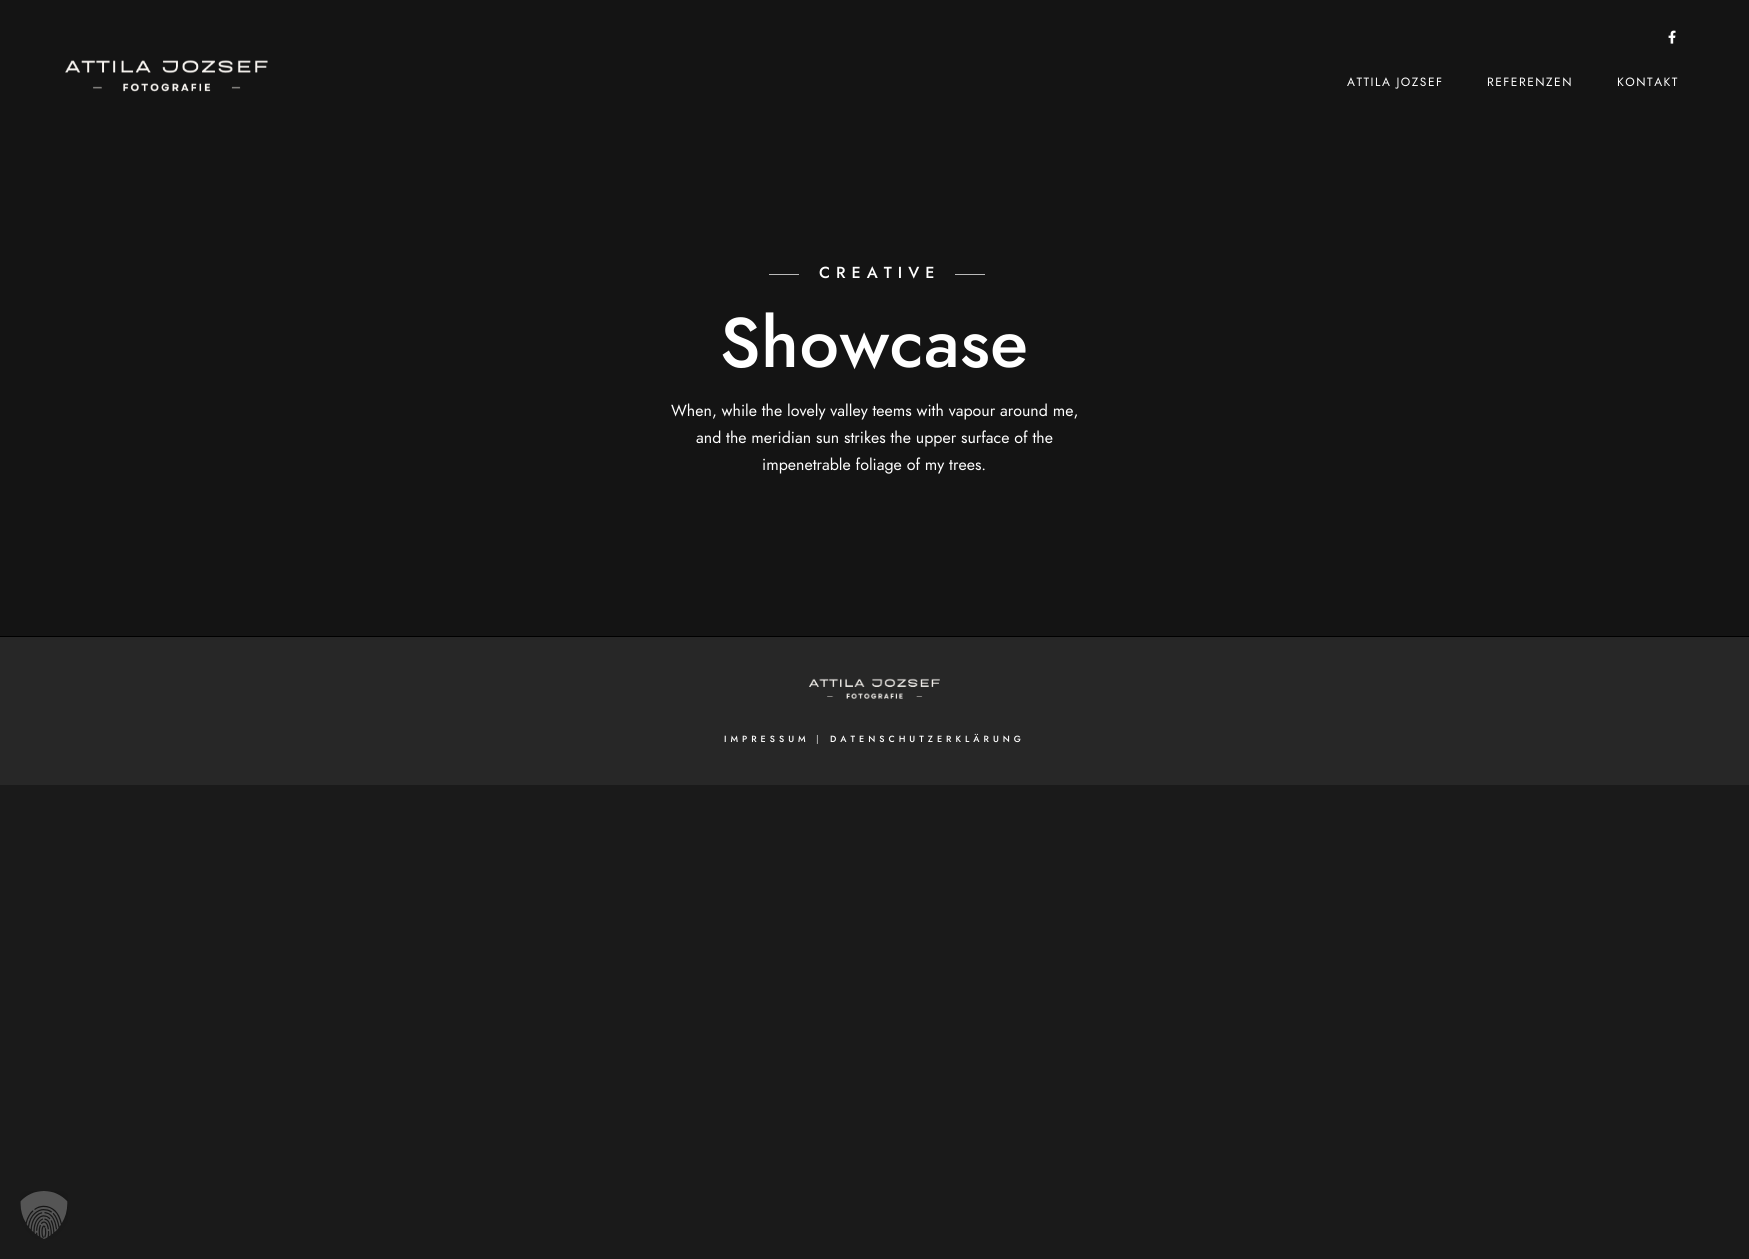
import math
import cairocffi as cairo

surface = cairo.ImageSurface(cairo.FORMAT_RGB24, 1749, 1259)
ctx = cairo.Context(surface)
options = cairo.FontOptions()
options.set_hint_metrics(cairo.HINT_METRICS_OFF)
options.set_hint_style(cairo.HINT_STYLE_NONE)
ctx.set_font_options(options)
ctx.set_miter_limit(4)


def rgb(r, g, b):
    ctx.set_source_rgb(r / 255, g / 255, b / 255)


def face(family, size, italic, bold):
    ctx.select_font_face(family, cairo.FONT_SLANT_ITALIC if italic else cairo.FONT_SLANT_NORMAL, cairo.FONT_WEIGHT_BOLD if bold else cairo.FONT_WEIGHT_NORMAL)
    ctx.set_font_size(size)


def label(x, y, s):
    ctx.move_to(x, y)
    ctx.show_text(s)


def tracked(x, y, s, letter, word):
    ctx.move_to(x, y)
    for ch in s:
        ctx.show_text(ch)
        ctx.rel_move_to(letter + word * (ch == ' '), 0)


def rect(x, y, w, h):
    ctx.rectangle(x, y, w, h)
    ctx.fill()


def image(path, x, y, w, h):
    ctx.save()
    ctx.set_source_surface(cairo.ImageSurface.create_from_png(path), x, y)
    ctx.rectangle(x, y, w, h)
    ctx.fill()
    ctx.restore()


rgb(26, 26, 26)
ctx.paint()
rgb(20, 20, 20)
rect(0, 0, 1749, 636)
image('image0.png', 1668, 30, 8, 14)
image('image1.png', 65, 60, 203, 32)
face('Jost', 12, 0, 0)
rgb(255, 255, 255)
tracked(1347, 86, 'ATTILA JOZSEF', 1.5, 0)
tracked(1487, 86, 'REFERENZEN', 1.5, 0)
tracked(1617, 86, 'KONTAKT', 1.5, 0)
rgb(185, 185, 185)
rect(769, 274, 30, 1)
face('Jost Medium', 16, 0, 0)
rgb(255, 255, 255)
tracked(819, 278, 'CREATIVE', 6, 0)
rgb(185, 185, 185)
rect(955, 274, 30, 1)
face('Jost Medium', 70, 0, 0)
rgb(255, 255, 255)
tracked(720, 367, 'Showcase', 0.5, 0)
face('Jost', 16, 0, 0)
label(671, 416, 'When, while the lovely valley teems with vapour around me,')
label(696, 443, 'and the meridian sun strikes the upper surface of the')
label(762, 470, 'impenetrable foliage of my trees.')
rgb(0, 0, 0)
rect(0, 636, 1749, 1)
rgb(39, 39, 39)
rect(0, 637, 1749, 148)
image('image2.png', 809, 678, 131, 21)
face('Jost Medium', 9, 0, 0)
rgb(255, 255, 255)
tracked(724, 742, 'IMPRESSUM', 4, 0)
rgb(184, 184, 184)
tracked(816, 742, '|', 4, 0)
rgb(255, 255, 255)
tracked(830, 742, 'DATENSCHUTZERKLÄRUNG', 4, 0)
image('image3.png', 20, 1191, 48, 48)
surface.write_to_png('render.png')
